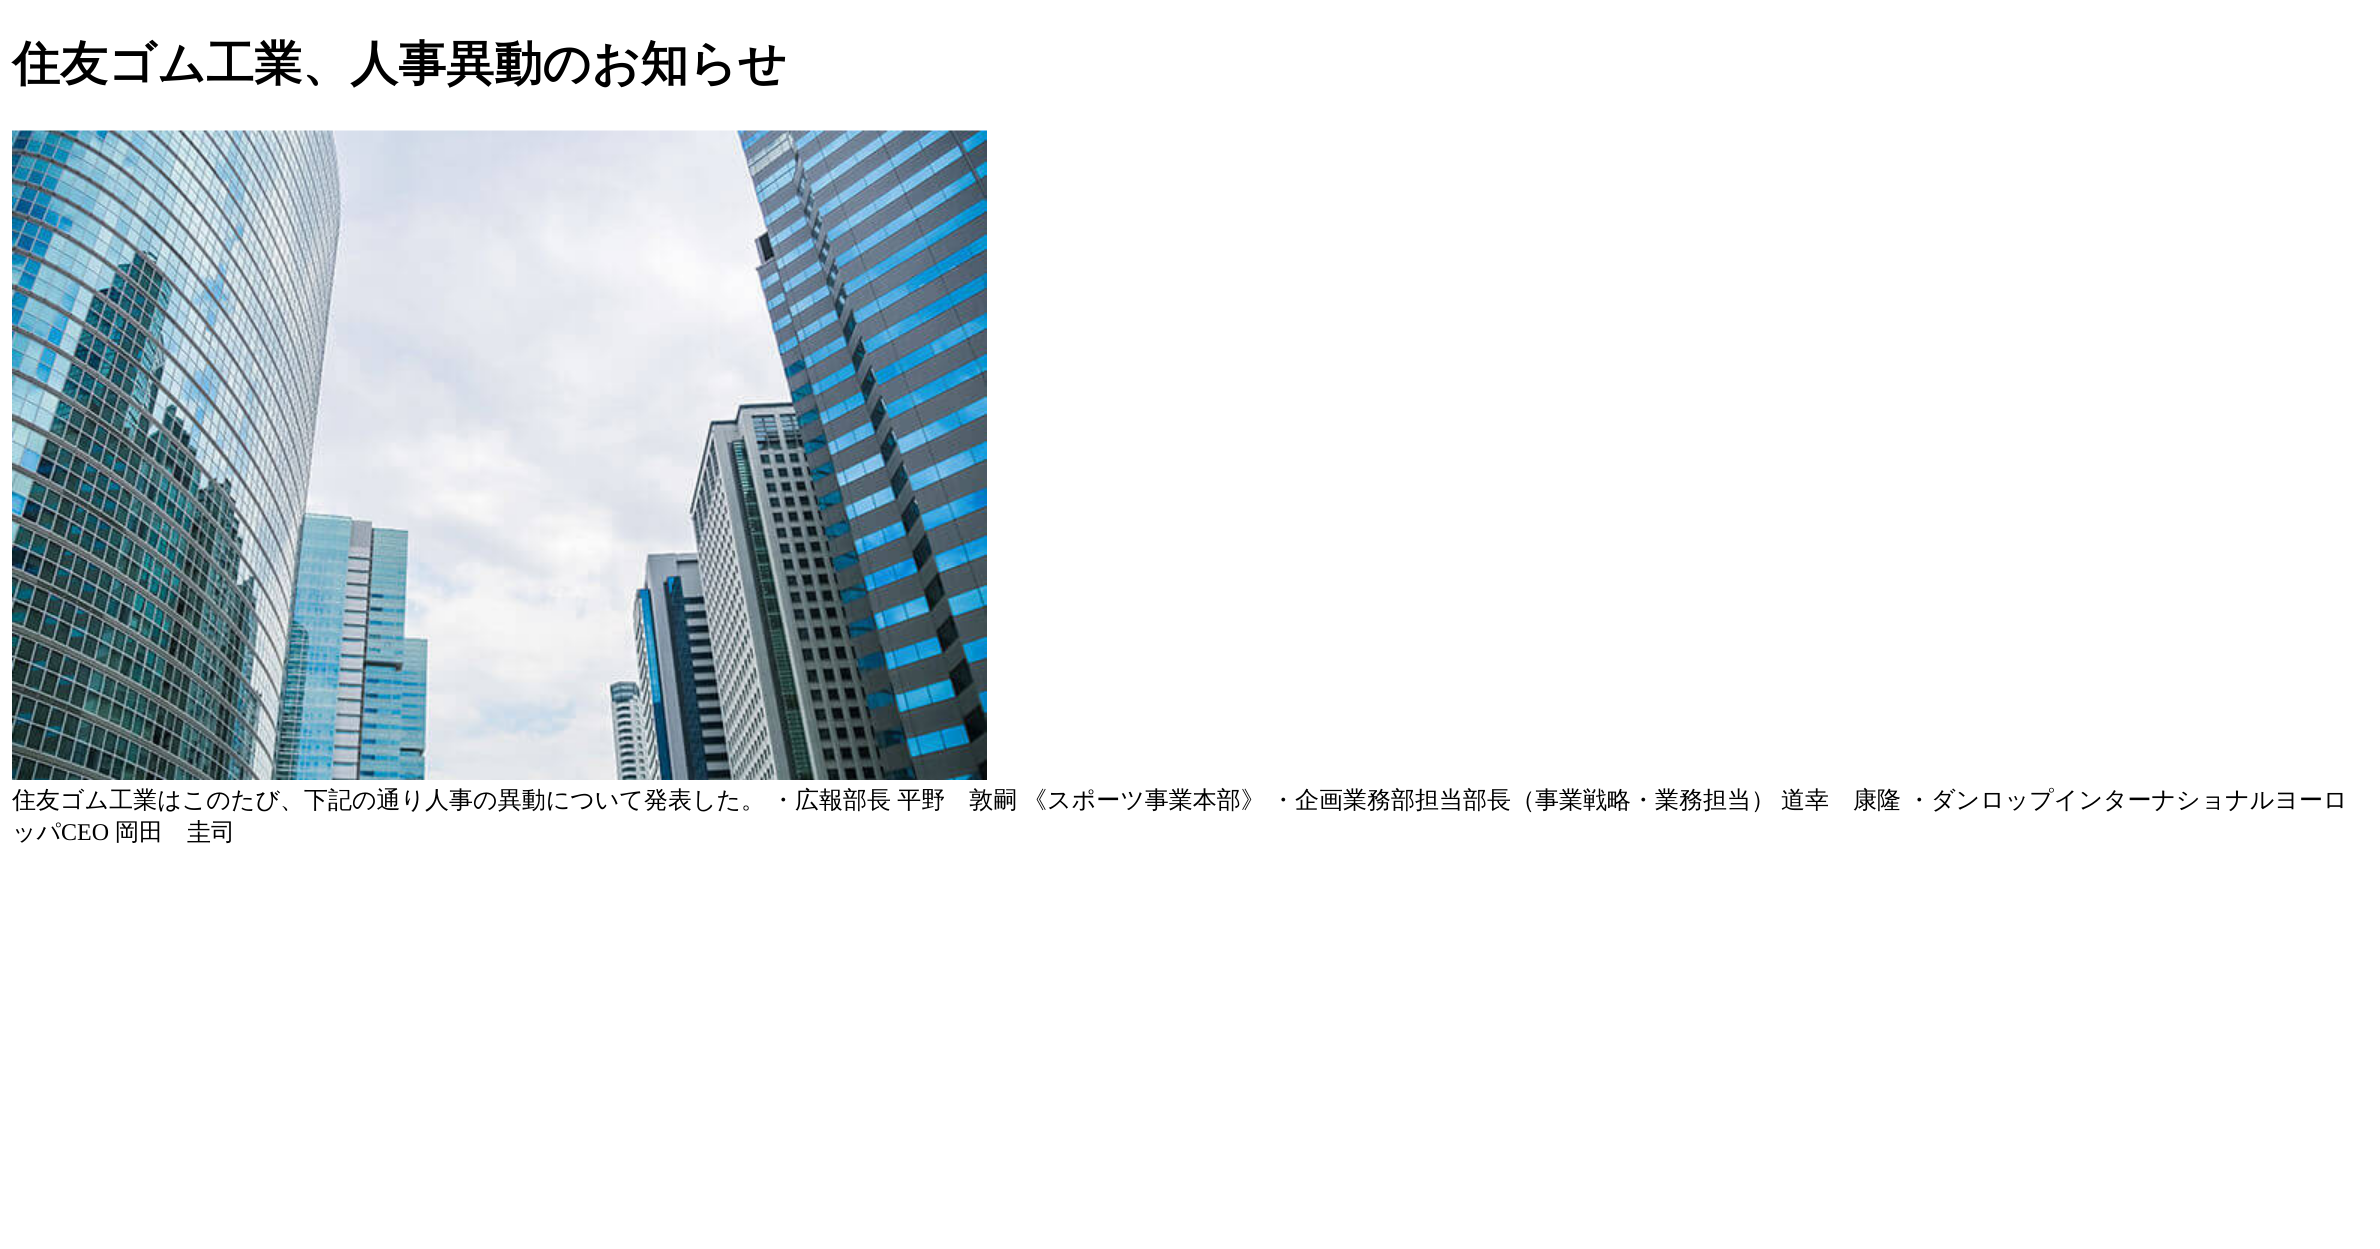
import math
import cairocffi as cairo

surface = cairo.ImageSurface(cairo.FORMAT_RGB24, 2380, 1249)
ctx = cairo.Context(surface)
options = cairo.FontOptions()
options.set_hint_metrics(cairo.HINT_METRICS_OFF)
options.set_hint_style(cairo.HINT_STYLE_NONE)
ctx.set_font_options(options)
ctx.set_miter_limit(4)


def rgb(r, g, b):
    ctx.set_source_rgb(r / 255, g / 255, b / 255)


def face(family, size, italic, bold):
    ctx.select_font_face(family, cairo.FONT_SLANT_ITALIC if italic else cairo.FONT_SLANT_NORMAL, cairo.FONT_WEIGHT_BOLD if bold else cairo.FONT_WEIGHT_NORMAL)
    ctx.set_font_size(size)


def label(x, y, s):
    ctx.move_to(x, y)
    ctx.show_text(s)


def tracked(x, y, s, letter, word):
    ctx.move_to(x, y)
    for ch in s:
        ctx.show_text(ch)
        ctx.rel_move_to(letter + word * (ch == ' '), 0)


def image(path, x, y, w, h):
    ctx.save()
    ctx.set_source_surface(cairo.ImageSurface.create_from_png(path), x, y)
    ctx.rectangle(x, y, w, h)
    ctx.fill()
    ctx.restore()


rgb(255, 255, 255)
ctx.paint()
face('WenQuanYi Zen Hei', 48, 0, 1)
rgb(0, 0, 0)
label(12, 80, '住友ゴム工業、人事異動のお知らせ')
image('image0.png', 12, 130, 975, 650)
face('WenQuanYi Zen Hei Medium', 24, 0, 0)
label(12, 808, '住友ゴム工業はこのたび、下記の通り人事の異動について発表した。')
tracked(771, 808, '・広報部長 平野　敦嗣', 0, -1)
tracked(1023, 808, '《スポーツ事業本部》 ・企画業務部担当部長（事業戦略・業務担当） 道幸　康隆', 0, -1)
label(1907, 808, '・ダンロップインターナショナルヨーロ')
label(12, 840, 'ッパ')
face('Liberation Serif', 24, 0, 0)
label(61, 840, 'CEO')
face('WenQuanYi Zen Hei Medium', 24, 0, 0)
label(115, 840, '岡田　圭司')
surface.write_to_png('render.png')
